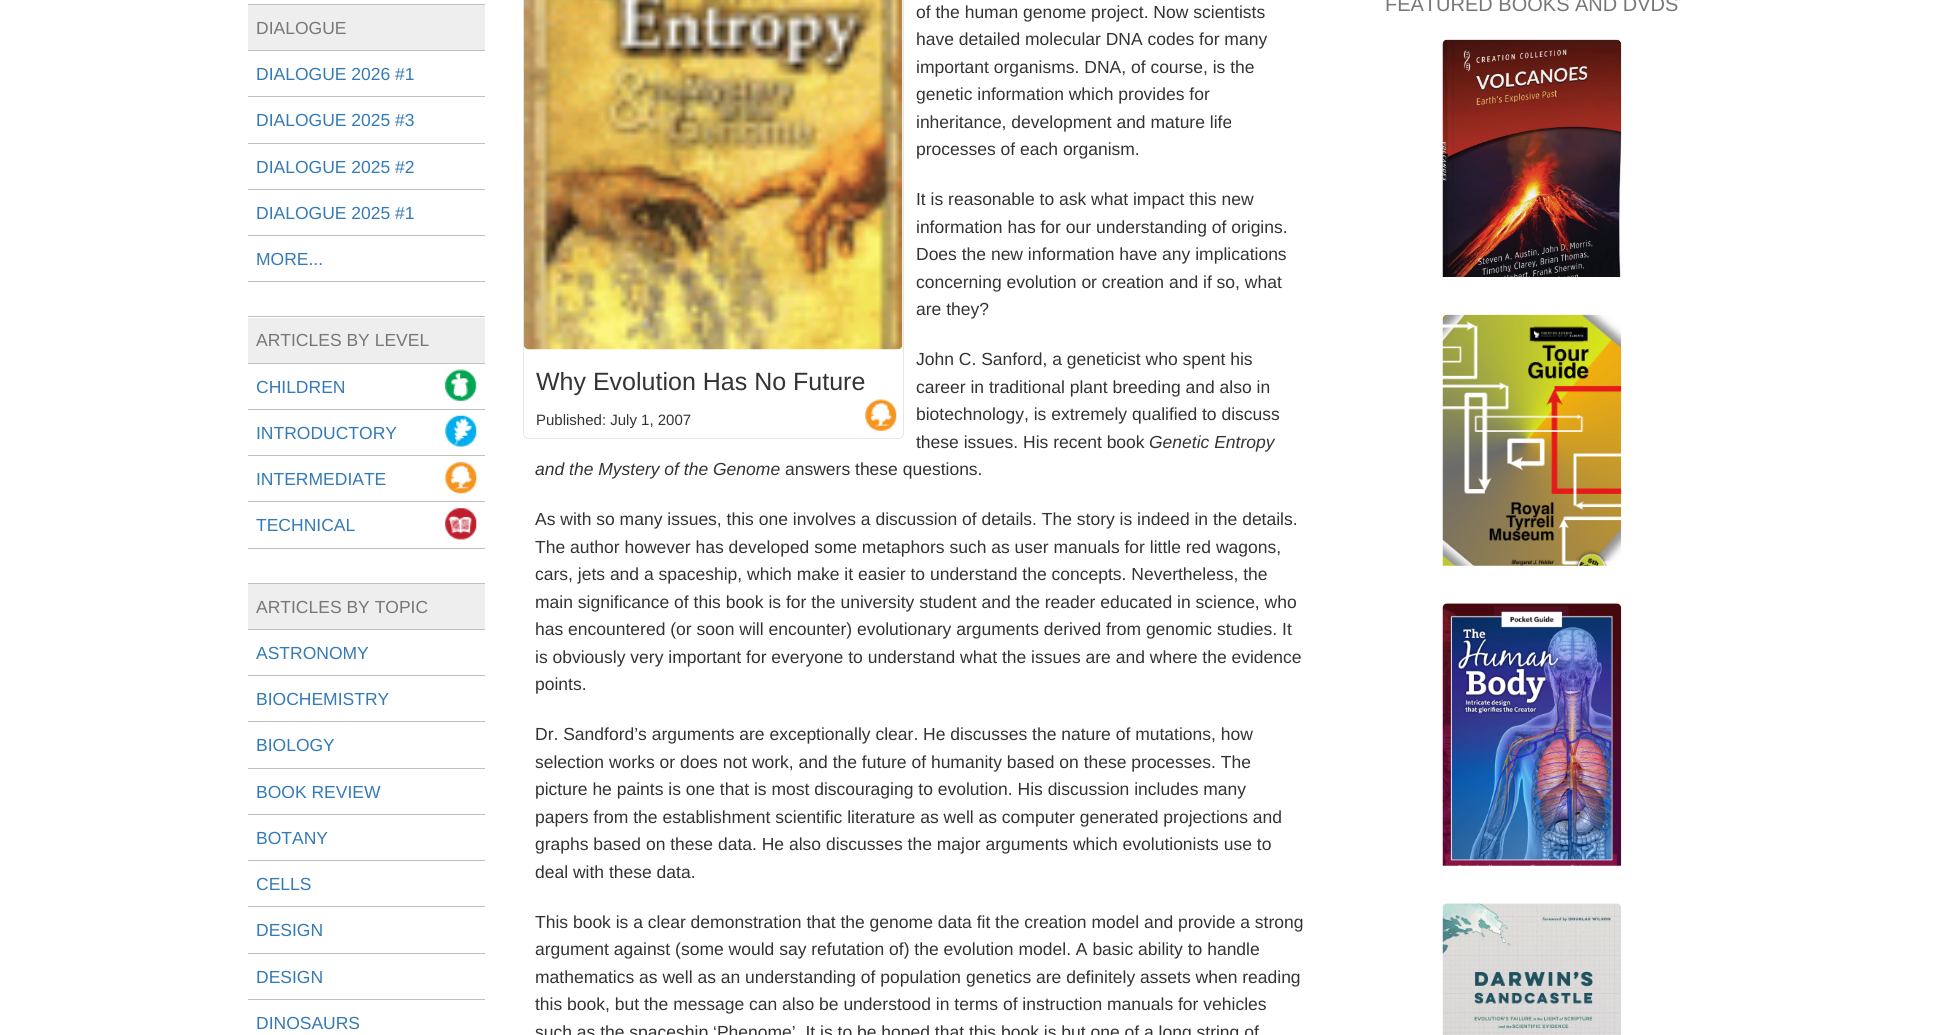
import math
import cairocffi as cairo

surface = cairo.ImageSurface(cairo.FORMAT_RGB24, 1957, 1035)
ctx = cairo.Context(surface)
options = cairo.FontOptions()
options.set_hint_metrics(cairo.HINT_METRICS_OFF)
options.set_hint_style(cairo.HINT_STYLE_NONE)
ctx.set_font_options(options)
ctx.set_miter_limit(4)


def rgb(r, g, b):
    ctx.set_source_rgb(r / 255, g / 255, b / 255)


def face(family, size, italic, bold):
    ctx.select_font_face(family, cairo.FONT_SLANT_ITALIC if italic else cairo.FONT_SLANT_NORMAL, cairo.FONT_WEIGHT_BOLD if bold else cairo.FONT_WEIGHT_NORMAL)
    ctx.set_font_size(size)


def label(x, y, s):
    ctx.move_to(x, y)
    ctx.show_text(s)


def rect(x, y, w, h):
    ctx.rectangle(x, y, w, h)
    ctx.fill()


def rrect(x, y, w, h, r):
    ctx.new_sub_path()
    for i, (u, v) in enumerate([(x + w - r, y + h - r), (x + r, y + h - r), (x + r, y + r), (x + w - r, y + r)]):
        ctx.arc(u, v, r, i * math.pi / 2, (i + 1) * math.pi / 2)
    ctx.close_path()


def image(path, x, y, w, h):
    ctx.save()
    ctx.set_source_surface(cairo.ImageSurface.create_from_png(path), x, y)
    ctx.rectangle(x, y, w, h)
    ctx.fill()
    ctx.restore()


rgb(255, 255, 255)
ctx.paint()
rgb(192, 192, 192)
rect(248, 281, 237, 1)
rgb(238, 238, 238)
rect(248, 5, 237, 45)
rgb(192, 192, 192)
rect(248, 4, 237, 1)
face('Liberation Sans', 17.5, 0, 0)
rgb(119, 119, 119)
label(256, 34, 'DIALOGUE')
rgb(192, 192, 192)
rect(248, 50, 237, 1)
rgb(51, 122, 183)
label(256, 80, 'DIALOGUE 2026 #1')
rgb(192, 192, 192)
rect(248, 96, 237, 1)
rgb(51, 122, 183)
label(256, 126, 'DIALOGUE 2025 #3')
rgb(192, 192, 192)
rect(248, 143, 237, 1)
rgb(51, 122, 183)
label(256, 173, 'DIALOGUE 2025 #2')
rgb(192, 192, 192)
rect(248, 189, 237, 1)
rgb(51, 122, 183)
label(256, 219, 'DIALOGUE 2025 #1')
rgb(192, 192, 192)
rect(248, 235, 237, 1)
rgb(51, 122, 183)
label(256, 265, 'MORE...')
rgb(192, 192, 192)
rect(248, 548, 237, 1)
rgb(238, 238, 238)
rect(248, 318, 237, 45)
rgb(192, 192, 192)
rect(248, 316, 237, 1)
rgb(119, 119, 119)
label(256, 346, 'ARTICLES BY LEVEL')
rgb(192, 192, 192)
rect(248, 363, 237, 1)
rgb(51, 122, 183)
label(256, 393, 'CHILDREN')
image('image0.png', 445, 369, 32, 32)
rgb(192, 192, 192)
rect(248, 409, 237, 1)
rgb(51, 122, 183)
label(256, 439, 'INTRODUCTORY')
image('image1.png', 445, 415, 32, 32)
rgb(192, 192, 192)
rect(248, 455, 237, 1)
rgb(51, 122, 183)
label(256, 485, 'INTERMEDIATE')
image('image2.png', 445, 462, 32, 32)
rgb(192, 192, 192)
rect(248, 501, 237, 1)
rgb(51, 122, 183)
label(256, 531, 'TECHNICAL')
image('image3.png', 445, 508, 32, 32)
rgb(238, 238, 238)
rect(248, 584, 237, 45)
rgb(192, 192, 192)
rect(248, 583, 237, 1)
rgb(119, 119, 119)
label(256, 613, 'ARTICLES BY TOPIC')
rgb(192, 192, 192)
rect(248, 629, 237, 1)
rgb(51, 122, 183)
label(256, 659, 'ASTRONOMY')
rgb(192, 192, 192)
rect(248, 675, 237, 1)
rgb(51, 122, 183)
label(256, 705, 'BIOCHEMISTRY')
rgb(192, 192, 192)
rect(248, 721, 237, 1)
rgb(51, 122, 183)
label(256, 751, 'BIOLOGY')
rgb(192, 192, 192)
rect(248, 768, 237, 1)
rgb(51, 122, 183)
label(256, 798, 'BOOK REVIEW')
rgb(192, 192, 192)
rect(248, 814, 237, 1)
rgb(51, 122, 183)
label(256, 844, 'BOTANY')
rgb(192, 192, 192)
rect(248, 860, 237, 1)
rgb(51, 122, 183)
label(256, 890, 'CELLS')
rgb(192, 192, 192)
rect(248, 906, 237, 1)
rgb(51, 122, 183)
label(256, 936, 'DESIGN')
rgb(192, 192, 192)
rect(248, 953, 237, 1)
rgb(51, 122, 183)
label(256, 983, 'DESIGN')
rgb(192, 192, 192)
rect(248, 999, 237, 1)
rgb(51, 122, 183)
label(256, 1029, 'DINOSAURS')
rgb(51, 51, 51)
label(916, 18, 'of the human genome project. Now scientists')
label(916, 45, 'have detailed molecular DNA codes for many')
label(916, 73, 'important organisms. DNA, of course, is the')
label(916, 100, 'genetic information which provides for')
label(916, 128, 'inheritance, development and mature life')
label(916, 155, 'processes of each organism.')
label(916, 205, 'It is reasonable to ask what impact this new')
label(916, 233, 'information has for our understanding of origins.')
label(916, 260, 'Does the new information have any implications')
label(916, 288, 'concerning evolution or creation and if so, what')
label(916, 315, 'are they?')
label(916, 365, 'John C. Sanford, a geneticist who spent his')
label(916, 393, 'career in traditional plant breeding and also in')
label(916, 420, 'biotechnology, is extremely qualified to discuss')
label(916, 448, 'these issues. His recent book')
face('Liberation Sans', 17.5, 1, 0)
label(1149, 448, 'Genetic Entropy')
label(535, 475, 'and the Mystery of the Genome')
face('Liberation Sans', 17.5, 0, 0)
label(785, 475, 'answers these questions.')
label(535, 525, 'As with so many issues, this one involves a discussion of details. The story is indeed in the details.')
label(535, 553, 'The author however has developed some metaphors such as user manuals for little red wagons,')
label(535, 580, 'cars, jets and a spaceship, which make it easier to understand the concepts. Nevertheless, the')
label(535, 608, 'main significance of this book is for the university student and the reader educated in science, who')
label(535, 635, 'has encountered (or soon will encounter) evolutionary arguments derived from genomic studies. It')
label(535, 663, 'is obviously very important for everyone to understand what the issues are and where the evidence')
label(535, 690, 'points.')
label(535, 740, 'Dr. Sandford’s arguments are exceptionally clear. He discusses the nature of mutations, how')
label(535, 768, 'selection works or does not work, and the future of humanity based on these processes. The')
label(535, 795, 'picture he paints is one that is most discouraging to evolution. His discussion includes many')
label(535, 823, 'papers from the establishment scientific literature as well as computer generated projections and')
label(535, 850, 'graphs based on these data. He also discusses the major arguments which evolutionists use to')
label(535, 878, 'deal with these data.')
label(535, 928, 'This book is a clear demonstration that the genome data fit the creation model and provide a strong')
label(535, 955, 'argument against (some would say refutation of) the evolution model. A basic ability to handle')
label(535, 983, 'mathematics as well as an understanding of population genetics are definitely assets when reading')
label(535, 1010, 'this book, but the message can also be understood in terms of instruction manuals for vehicles')
label(535, 1038, 'such as the spaceship ‘Phenome’. It is to be hoped that this book is but one of a long string of')
rrect(523.5, -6.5, 380, 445, 5.5)
rgb(230, 230, 230)
ctx.set_line_width(1)
ctx.stroke()
image('image4.png', 524, 0, 379, 350)
face('Liberation Sans', 25, 0, 0)
rgb(51, 51, 51)
label(536, 390, 'Why Evolution Has No Future')
face('Liberation Sans', 15, 0, 0)
label(536, 425, 'Published: July 1, 2007')
image('image5.png', 865, 399, 32, 32)
face('Liberation Sans', 20, 0, 0)
rgb(119, 119, 119)
label(1385, 11, 'FEATURED BOOKS AND DVDS')
image('image6.png', 1442, 39, 180, 238)
image('image7.png', 1442, 314, 180, 252)
image('image8.png', 1442, 603, 180, 263)
image('image9.png', 1442, 903, 179, 132)
surface.write_to_png('render.png')
